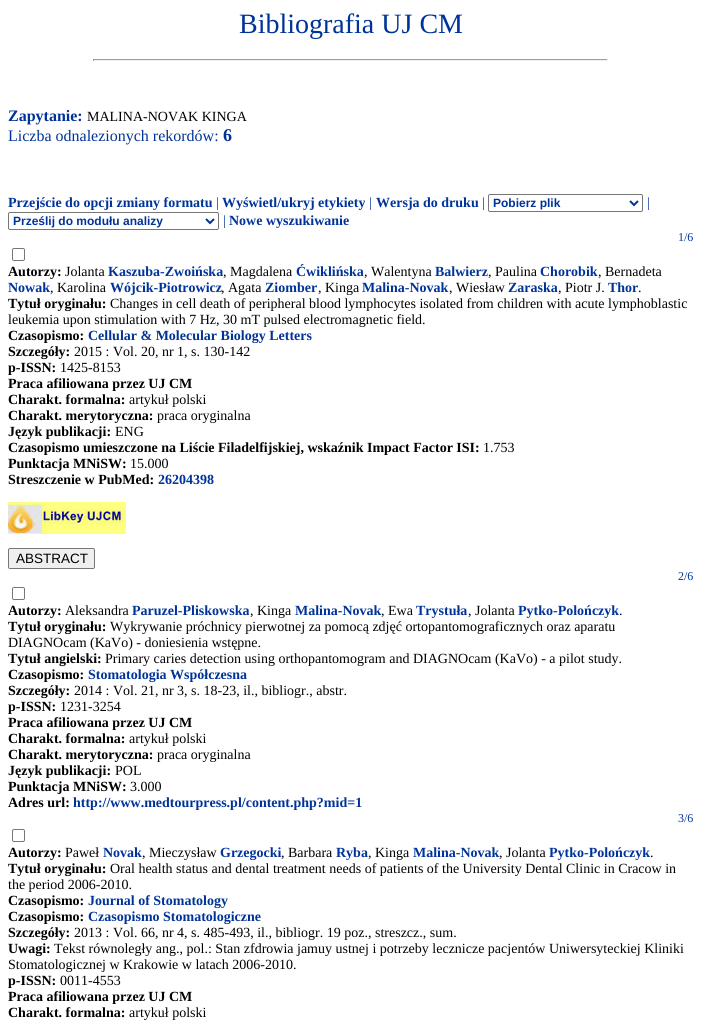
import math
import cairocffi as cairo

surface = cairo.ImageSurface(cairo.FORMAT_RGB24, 701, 1020)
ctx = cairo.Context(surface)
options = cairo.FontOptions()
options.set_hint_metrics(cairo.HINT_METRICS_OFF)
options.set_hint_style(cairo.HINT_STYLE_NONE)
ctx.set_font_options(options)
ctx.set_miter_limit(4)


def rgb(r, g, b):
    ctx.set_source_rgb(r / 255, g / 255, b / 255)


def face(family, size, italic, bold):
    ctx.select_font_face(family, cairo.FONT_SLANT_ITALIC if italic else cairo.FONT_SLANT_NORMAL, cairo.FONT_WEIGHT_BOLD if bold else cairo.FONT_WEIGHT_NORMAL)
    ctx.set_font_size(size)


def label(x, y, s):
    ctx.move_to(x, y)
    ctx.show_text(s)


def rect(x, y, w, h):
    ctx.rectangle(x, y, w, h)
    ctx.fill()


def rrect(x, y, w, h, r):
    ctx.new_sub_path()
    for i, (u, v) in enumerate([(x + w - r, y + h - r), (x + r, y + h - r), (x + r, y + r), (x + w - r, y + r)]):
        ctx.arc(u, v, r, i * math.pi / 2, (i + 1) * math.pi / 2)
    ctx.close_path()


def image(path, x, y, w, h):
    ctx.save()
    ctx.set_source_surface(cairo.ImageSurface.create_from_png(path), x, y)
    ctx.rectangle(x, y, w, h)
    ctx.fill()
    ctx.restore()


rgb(255, 255, 255)
ctx.paint()
face('Liberation Serif', 28, 0, 0)
rgb(0, 51, 153)
label(239, 33, 'Bibliografia UJ CM')
rgb(159, 159, 159)
rect(93, 59, 515, 1)
rgb(238, 238, 238)
rect(607, 59, 1, 2)
rect(93, 60, 515, 1)
rgb(159, 159, 159)
rect(93, 59, 1, 2)
face('Liberation Serif', 16, 0, 1)
rgb(0, 51, 153)
label(8, 121, 'Zapytanie:')
face('Liberation Serif', 14, 0, 0)
rgb(0, 0, 0)
label(87, 121, 'MALINA-NOVAK KINGA')
face('Liberation Serif', 16, 0, 0)
rgb(0, 51, 153)
label(8, 141, 'Liczba odnalezionych rekordów:')
face('Liberation Serif', 18, 0, 1)
label(223, 141, '6')
face('Liberation Serif', 14, 0, 1)
label(8, 207, 'Przejście do opcji zmiany formatu')
face('Liberation Serif', 14, 0, 0)
label(216, 207, '|')
face('Liberation Serif', 14, 0, 1)
label(222, 207, 'Wyświetl/ukryj etykiety')
face('Liberation Serif', 14, 0, 0)
label(369, 207, '|')
face('Liberation Serif', 14, 0, 1)
label(376, 207, 'Wersja do druku')
face('Liberation Serif', 14, 0, 0)
label(482, 207, '|')
rrect(488.5, 194.5, 154, 17, 1.5)
rgb(118, 118, 118)
ctx.set_line_width(1)
ctx.stroke()
ctx.new_path()
ctx.move_to(630, 201)
ctx.line_to(634, 205)
ctx.line_to(638, 201)
rgb(0, 51, 153)
ctx.set_line_width(2)
ctx.stroke()
face('Liberation Sans', 12, 0, 1)
label(493, 207, 'Pobierz plik')
face('Liberation Serif', 14, 0, 0)
label(647, 207, '|')
rrect(8.5, 212.5, 210, 17, 1.5)
rgb(118, 118, 118)
ctx.set_line_width(1)
ctx.stroke()
ctx.new_path()
ctx.move_to(206, 219)
ctx.line_to(210, 223)
ctx.line_to(214, 219)
rgb(0, 51, 153)
ctx.set_line_width(2)
ctx.stroke()
face('Liberation Sans', 12, 0, 1)
label(13, 225, 'Prześlij do modułu analizy')
face('Liberation Serif', 14, 0, 0)
label(223, 225, '|')
face('Liberation Serif', 14, 0, 1)
label(229, 225, 'Nowe wyszukiwanie')
face('Liberation Serif', 12, 0, 0)
label(678, 241, '1/6')
rrect(12.5, 248.5, 12, 12, 1.5)
rgb(118, 118, 118)
ctx.set_line_width(1)
ctx.stroke()
face('Liberation Serif', 14, 0, 1)
rgb(0, 0, 0)
label(8, 276, 'Autorzy:')
face('Liberation Serif', 14, 0, 0)
label(65, 276, 'Jolanta')
face('Liberation Serif', 14, 0, 1)
rgb(0, 51, 153)
label(108, 276, 'Kaszuba-Zwoińska')
face('Liberation Serif', 14, 0, 0)
rgb(0, 0, 0)
label(223, 276, ', Magdalena')
face('Liberation Serif', 14, 0, 1)
rgb(0, 51, 153)
label(296, 276, 'Ćwiklińska')
face('Liberation Serif', 14, 0, 0)
rgb(0, 0, 0)
label(364, 276, ', Walentyna')
face('Liberation Serif', 14, 0, 1)
rgb(0, 51, 153)
label(435, 276, 'Balwierz')
face('Liberation Serif', 14, 0, 0)
rgb(0, 0, 0)
label(488, 276, ', Paulina')
face('Liberation Serif', 14, 0, 1)
rgb(0, 51, 153)
label(540, 276, 'Chorobik')
face('Liberation Serif', 14, 0, 0)
rgb(0, 0, 0)
label(598, 276, ', Bernadeta')
face('Liberation Serif', 14, 0, 1)
rgb(0, 51, 153)
label(8, 292, 'Nowak')
face('Liberation Serif', 14, 0, 0)
rgb(0, 0, 0)
label(50, 292, ', Karolina')
face('Liberation Serif', 14, 0, 1)
rgb(0, 51, 153)
label(110, 292, 'Wójcik-Piotrowicz')
face('Liberation Serif', 14, 0, 0)
rgb(0, 0, 0)
label(221, 292, ', Agata')
face('Liberation Serif', 14, 0, 1)
rgb(0, 51, 153)
label(265, 292, 'Ziomber')
face('Liberation Serif', 14, 0, 0)
rgb(0, 0, 0)
label(318, 292, ', Kinga')
face('Liberation Serif', 14, 0, 1)
rgb(0, 51, 153)
label(362, 292, 'Malina-Novak')
face('Liberation Serif', 14, 0, 0)
rgb(0, 0, 0)
label(449, 292, ', Wiesław')
face('Liberation Serif', 14, 0, 1)
rgb(0, 51, 153)
label(508, 292, 'Zaraska')
face('Liberation Serif', 14, 0, 0)
rgb(0, 0, 0)
label(558, 292, ', Piotr J.')
face('Liberation Serif', 14, 0, 1)
rgb(0, 51, 153)
label(608, 292, 'Thor')
face('Liberation Serif', 14, 0, 0)
rgb(0, 0, 0)
label(638, 292, '.')
face('Liberation Serif', 14, 0, 1)
label(8, 308, 'Tytuł oryginału:')
face('Liberation Serif', 14, 0, 0)
label(110, 308, 'Changes in cell death of peripheral blood lymphocytes isolated from children with acute lymphoblastic')
label(8, 324, 'leukemia upon stimulation with 7 Hz, 30 mT pulsed electromagnetic field.')
face('Liberation Serif', 14, 0, 1)
label(8, 340, 'Czasopismo:')
rgb(0, 51, 153)
label(88, 340, 'Cellular & Molecular Biology Letters')
rgb(0, 0, 0)
label(8, 356, 'Szczegóły:')
face('Liberation Serif', 14, 0, 0)
label(74, 356, '2015 : Vol. 20, nr 1, s. 130-142')
face('Liberation Serif', 14, 0, 1)
label(8, 372, 'p-ISSN:')
face('Liberation Serif', 14, 0, 0)
label(60, 372, '1425-8153')
face('Liberation Serif', 14, 0, 1)
label(8, 388, 'Praca afiliowana przez UJ CM')
label(8, 404, 'Charakt. formalna:')
face('Liberation Serif', 14, 0, 0)
label(129, 404, 'artykuł polski')
face('Liberation Serif', 14, 0, 1)
label(8, 420, 'Charakt. merytoryczna:')
face('Liberation Serif', 14, 0, 0)
label(157, 420, 'praca oryginalna')
face('Liberation Serif', 14, 0, 1)
label(8, 436, 'Język publikacji:')
face('Liberation Serif', 14, 0, 0)
label(115, 436, 'ENG')
face('Liberation Serif', 14, 0, 1)
label(8, 452, 'Czasopismo umieszczone na Liście Filadelfijskiej, wskaźnik Impact Factor ISI:')
face('Liberation Serif', 14, 0, 0)
label(483, 452, '1.753')
face('Liberation Serif', 14, 0, 1)
label(8, 468, 'Punktacja MNiSW:')
face('Liberation Serif', 14, 0, 0)
label(130, 468, '15.000')
face('Liberation Serif', 14, 0, 1)
label(8, 484, 'Streszczenie w PubMed:')
rgb(0, 51, 153)
label(158, 484, '26204398')
image('image0.png', 8, 502, 118, 32)
rgb(239, 239, 239)
rrect(8.5, 548.5, 86, 20, 1.5)
ctx.fill_preserve()
rgb(118, 118, 118)
ctx.stroke()
face('Liberation Sans', 13.5, 0, 0)
rgb(0, 0, 0)
label(16, 563, 'ABSTRACT')
face('Liberation Serif', 12, 0, 0)
rgb(0, 51, 153)
label(678, 580, '2/6')
rrect(12.5, 587.5, 12, 12, 1.5)
rgb(118, 118, 118)
ctx.stroke()
face('Liberation Serif', 14, 0, 1)
rgb(0, 0, 0)
label(8, 615, 'Autorzy:')
face('Liberation Serif', 14, 0, 0)
label(65, 615, 'Aleksandra')
face('Liberation Serif', 14, 0, 1)
rgb(0, 51, 153)
label(132, 615, 'Paruzel-Pliskowska')
face('Liberation Serif', 14, 0, 0)
rgb(0, 0, 0)
label(250, 615, ', Kinga')
face('Liberation Serif', 14, 0, 1)
rgb(0, 51, 153)
label(295, 615, 'Malina-Novak')
face('Liberation Serif', 14, 0, 0)
rgb(0, 0, 0)
label(381, 615, ', Ewa')
face('Liberation Serif', 14, 0, 1)
rgb(0, 51, 153)
label(416, 615, 'Trystuła')
face('Liberation Serif', 14, 0, 0)
rgb(0, 0, 0)
label(468, 615, ', Jolanta')
face('Liberation Serif', 14, 0, 1)
rgb(0, 51, 153)
label(518, 615, 'Pytko-Polończyk')
face('Liberation Serif', 14, 0, 0)
rgb(0, 0, 0)
label(619, 615, '.')
face('Liberation Serif', 14, 0, 1)
label(8, 631, 'Tytuł oryginału:')
face('Liberation Serif', 14, 0, 0)
label(110, 631, 'Wykrywanie próchnicy pierwotnej za pomocą zdjęć ortopantomograficznych oraz aparatu')
label(8, 647, 'DIAGNOcam (KaVo) - doniesienia wstępne.')
face('Liberation Serif', 14, 0, 1)
label(8, 663, 'Tytuł angielski:')
face('Liberation Serif', 14, 0, 0)
label(105, 663, 'Primary caries detection using orthopantomogram and DIAGNOcam (KaVo) - a pilot study.')
face('Liberation Serif', 14, 0, 1)
label(8, 679, 'Czasopismo:')
rgb(0, 51, 153)
label(88, 679, 'Stomatologia Współczesna')
rgb(0, 0, 0)
label(8, 695, 'Szczegóły:')
face('Liberation Serif', 14, 0, 0)
label(74, 695, '2014 : Vol. 21, nr 3, s. 18-23, il., bibliogr., abstr.')
face('Liberation Serif', 14, 0, 1)
label(8, 711, 'p-ISSN:')
face('Liberation Serif', 14, 0, 0)
label(60, 711, '1231-3254')
face('Liberation Serif', 14, 0, 1)
label(8, 727, 'Praca afiliowana przez UJ CM')
label(8, 743, 'Charakt. formalna:')
face('Liberation Serif', 14, 0, 0)
label(129, 743, 'artykuł polski')
face('Liberation Serif', 14, 0, 1)
label(8, 759, 'Charakt. merytoryczna:')
face('Liberation Serif', 14, 0, 0)
label(157, 759, 'praca oryginalna')
face('Liberation Serif', 14, 0, 1)
label(8, 775, 'Język publikacji:')
face('Liberation Serif', 14, 0, 0)
label(115, 775, 'POL')
face('Liberation Serif', 14, 0, 1)
label(8, 791, 'Punktacja MNiSW:')
face('Liberation Serif', 14, 0, 0)
label(130, 791, '3.000')
face('Liberation Serif', 14, 0, 1)
label(8, 807, 'Adres url:')
rgb(0, 51, 153)
label(73, 807, 'http://www.medtourpress.pl/content.php?mid=1')
face('Liberation Serif', 12, 0, 0)
label(678, 822, '3/6')
rrect(12.5, 829.5, 12, 12, 1.5)
rgb(118, 118, 118)
ctx.stroke()
face('Liberation Serif', 14, 0, 1)
rgb(0, 0, 0)
label(8, 857, 'Autorzy:')
face('Liberation Serif', 14, 0, 0)
label(65, 857, 'Paweł')
face('Liberation Serif', 14, 0, 1)
rgb(0, 51, 153)
label(103, 857, 'Novak')
face('Liberation Serif', 14, 0, 0)
rgb(0, 0, 0)
label(142, 857, ', Mieczysław')
face('Liberation Serif', 14, 0, 1)
rgb(0, 51, 153)
label(220, 857, 'Grzegocki')
face('Liberation Serif', 14, 0, 0)
rgb(0, 0, 0)
label(281, 857, ', Barbara')
face('Liberation Serif', 14, 0, 1)
rgb(0, 51, 153)
label(336, 857, 'Ryba')
face('Liberation Serif', 14, 0, 0)
rgb(0, 0, 0)
label(368, 857, ', Kinga')
face('Liberation Serif', 14, 0, 1)
rgb(0, 51, 153)
label(413, 857, 'Malina-Novak')
face('Liberation Serif', 14, 0, 0)
rgb(0, 0, 0)
label(499, 857, ', Jolanta')
face('Liberation Serif', 14, 0, 1)
rgb(0, 51, 153)
label(549, 857, 'Pytko-Polończyk')
face('Liberation Serif', 14, 0, 0)
rgb(0, 0, 0)
label(650, 857, '.')
face('Liberation Serif', 14, 0, 1)
label(8, 873, 'Tytuł oryginału:')
face('Liberation Serif', 14, 0, 0)
label(110, 873, 'Oral health status and dental treatment needs of patients of the University Dental Clinic in Cracow in')
label(8, 889, 'the period 2006-2010.')
face('Liberation Serif', 14, 0, 1)
label(8, 905, 'Czasopismo:')
rgb(0, 51, 153)
label(88, 905, 'Journal of Stomatology')
rgb(0, 0, 0)
label(8, 921, 'Czasopismo:')
rgb(0, 51, 153)
label(88, 921, 'Czasopismo Stomatologiczne')
rgb(0, 0, 0)
label(8, 937, 'Szczegóły:')
face('Liberation Serif', 14, 0, 0)
label(74, 937, '2013 : Vol. 66, nr 4, s. 485-493, il., bibliogr. 19 poz., streszcz., sum.')
face('Liberation Serif', 14, 0, 1)
label(8, 953, 'Uwagi:')
face('Liberation Serif', 14, 0, 0)
label(54, 953, 'Tekst równoległy ang., pol.: Stan zfdrowia jamuy ustnej i potrzeby lecznicze pacjentów Uniwersyteckiej Kliniki')
label(8, 969, 'Stomatologicznej w Krakowie w latach 2006-2010.')
face('Liberation Serif', 14, 0, 1)
label(8, 985, 'p-ISSN:')
face('Liberation Serif', 14, 0, 0)
label(60, 985, '0011-4553')
face('Liberation Serif', 14, 0, 1)
label(8, 1001, 'Praca afiliowana przez UJ CM')
label(8, 1017, 'Charakt. formalna:')
face('Liberation Serif', 14, 0, 0)
label(129, 1017, 'artykuł polski')
surface.write_to_png('render.png')
